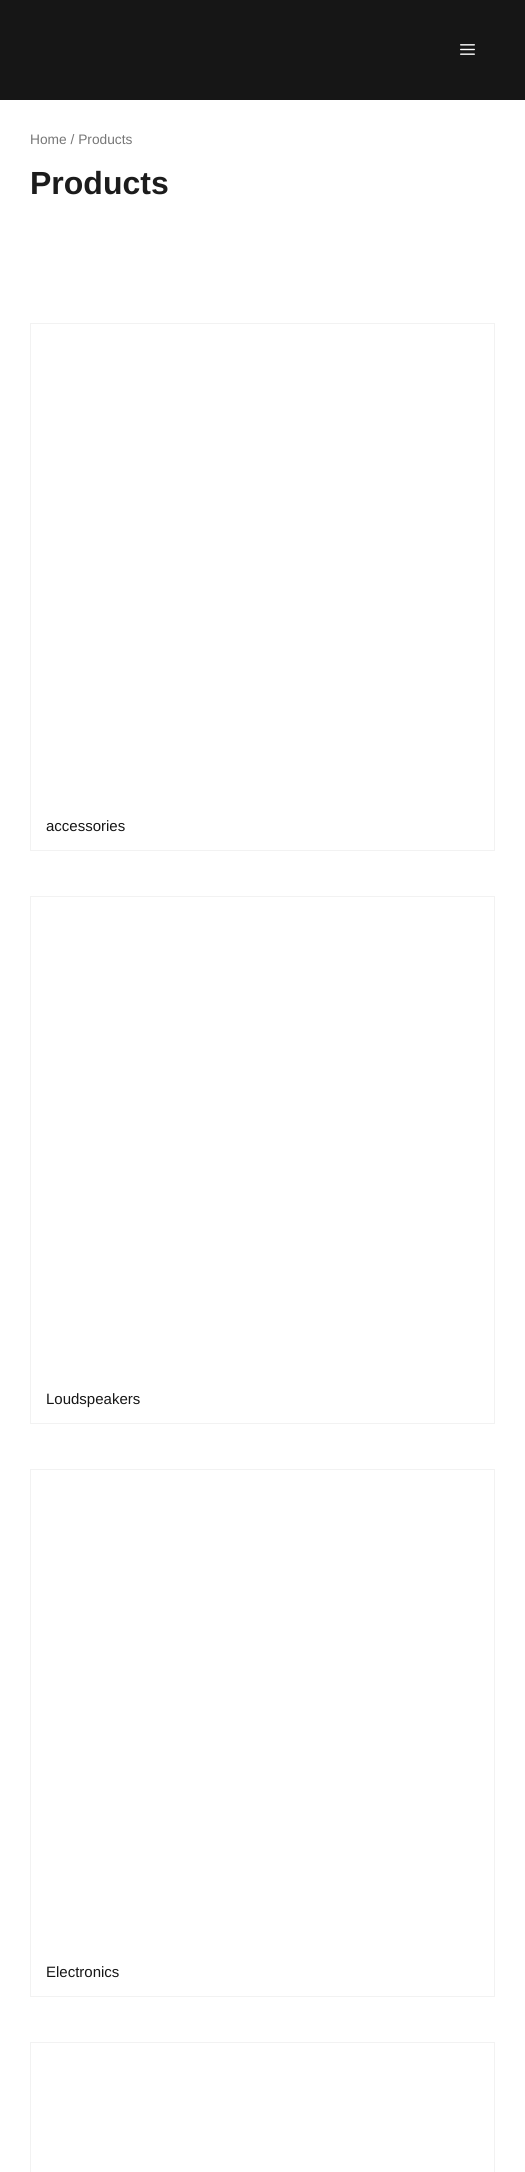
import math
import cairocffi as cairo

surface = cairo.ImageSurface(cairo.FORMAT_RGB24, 525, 2172)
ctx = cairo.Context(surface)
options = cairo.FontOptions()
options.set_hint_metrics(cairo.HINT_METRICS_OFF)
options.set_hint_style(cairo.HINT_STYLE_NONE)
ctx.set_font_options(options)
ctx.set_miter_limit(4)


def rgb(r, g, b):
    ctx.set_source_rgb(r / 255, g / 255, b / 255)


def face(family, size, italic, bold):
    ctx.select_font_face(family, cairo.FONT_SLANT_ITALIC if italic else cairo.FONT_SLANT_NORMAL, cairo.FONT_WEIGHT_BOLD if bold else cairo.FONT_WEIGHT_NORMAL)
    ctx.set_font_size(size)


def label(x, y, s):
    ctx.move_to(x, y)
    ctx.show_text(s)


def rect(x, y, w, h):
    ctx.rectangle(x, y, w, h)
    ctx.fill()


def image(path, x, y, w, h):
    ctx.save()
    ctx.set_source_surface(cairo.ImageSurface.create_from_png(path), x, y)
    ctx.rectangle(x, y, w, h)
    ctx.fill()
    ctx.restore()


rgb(255, 255, 255)
ctx.paint()
rgb(22, 22, 22)
rect(0, 0, 525, 100)
image('image0.png', 460, 44, 15, 11)
face('Liberation Sans', 13.75, 0, 0)
rgb(118, 118, 118)
label(30, 144, 'Home / Products')
face('Liberation Sans', 32, 0, 1)
rgb(28, 28, 28)
label(30, 194, 'Products')
ctx.rectangle(30.5, 323.5, 464, 527)
rgb(242, 242, 242)
ctx.set_line_width(1)
ctx.stroke()
face('Liberation Sans', 15, 0, 0)
rgb(22, 22, 22)
label(46, 831, 'accessories')
ctx.rectangle(30.5, 896.5, 464, 527)
rgb(242, 242, 242)
ctx.stroke()
rgb(22, 22, 22)
label(46, 1404, 'Loudspeakers')
ctx.rectangle(30.5, 1469.5, 464, 527)
rgb(242, 242, 242)
ctx.stroke()
rgb(22, 22, 22)
label(46, 1977, 'Electronics')
ctx.rectangle(30.5, 2042.5, 464, 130)
rgb(242, 242, 242)
ctx.stroke()
surface.write_to_png('render.png')
